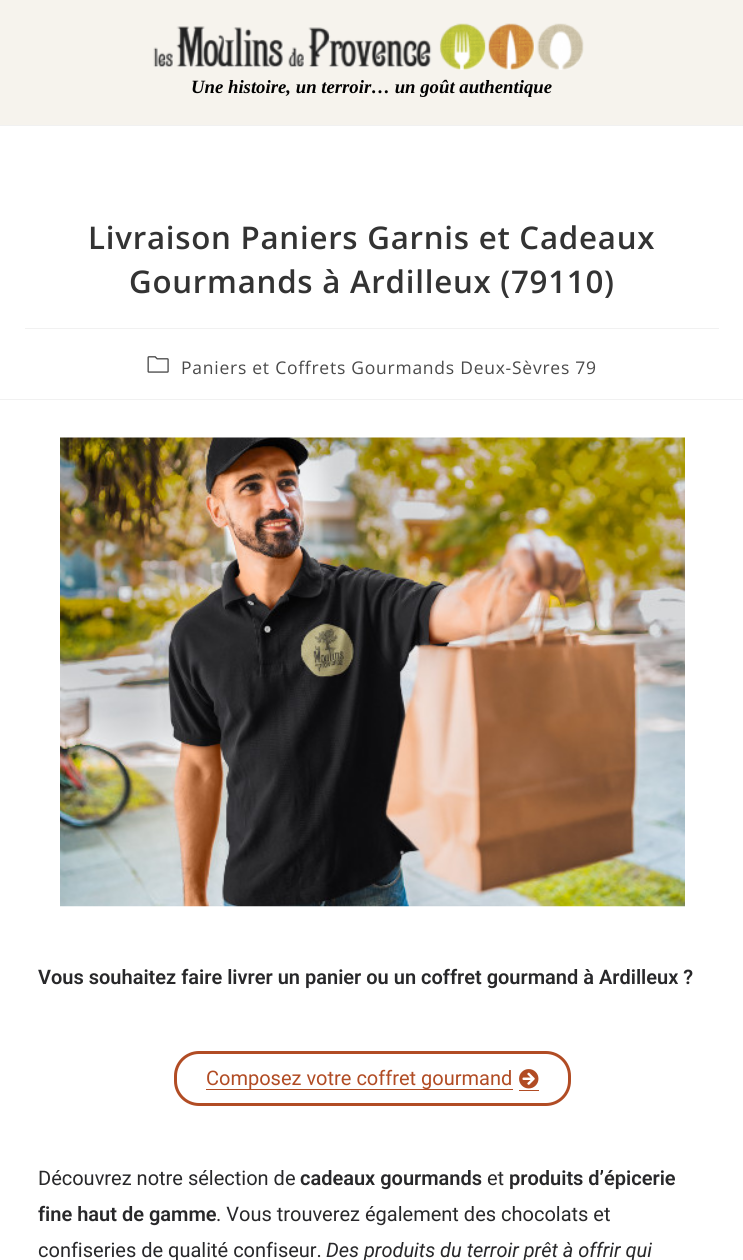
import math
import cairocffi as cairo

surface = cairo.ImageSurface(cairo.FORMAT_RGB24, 743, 1260)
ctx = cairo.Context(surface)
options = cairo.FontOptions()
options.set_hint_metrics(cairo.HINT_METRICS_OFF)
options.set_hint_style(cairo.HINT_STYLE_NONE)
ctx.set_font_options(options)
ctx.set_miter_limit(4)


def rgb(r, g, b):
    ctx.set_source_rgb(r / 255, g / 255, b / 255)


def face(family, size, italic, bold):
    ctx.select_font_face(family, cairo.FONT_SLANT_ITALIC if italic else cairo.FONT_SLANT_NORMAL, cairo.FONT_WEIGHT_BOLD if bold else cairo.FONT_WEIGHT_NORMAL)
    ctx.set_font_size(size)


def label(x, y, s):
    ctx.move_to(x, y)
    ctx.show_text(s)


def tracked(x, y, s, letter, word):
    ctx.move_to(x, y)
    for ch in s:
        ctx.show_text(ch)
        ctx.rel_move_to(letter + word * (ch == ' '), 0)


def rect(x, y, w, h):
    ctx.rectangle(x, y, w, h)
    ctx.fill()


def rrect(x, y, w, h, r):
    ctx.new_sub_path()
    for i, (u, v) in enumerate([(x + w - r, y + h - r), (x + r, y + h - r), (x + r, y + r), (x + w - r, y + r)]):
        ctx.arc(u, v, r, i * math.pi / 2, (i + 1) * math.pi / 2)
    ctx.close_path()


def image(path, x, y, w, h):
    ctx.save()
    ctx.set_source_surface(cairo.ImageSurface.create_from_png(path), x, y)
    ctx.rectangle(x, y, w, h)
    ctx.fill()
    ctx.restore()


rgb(255, 255, 255)
ctx.paint()
rgb(241, 241, 241)
rect(0, 125, 743, 1)
rgb(246, 243, 237)
rect(0, 0, 743, 125)
image('image0.png', 153, 23, 431, 47)
face('Liberation Serif', 18.75, 1, 1)
rgb(0, 0, 0)
label(191, 93, 'Une histoire, un terroir… un goût authentique')
rgb(241, 241, 241)
rect(25, 328, 694, 1)
face('Open Sans SemiBold', 31.25, 0, 0)
rgb(51, 51, 51)
tracked(88, 249, 'Livraison Paniers Garnis et Cadeaux', 0.75, 0)
tracked(129, 293, 'Gourmands à Ardilleux (79110)', 0.75, 0)
rgb(241, 241, 241)
rect(0, 399, 743, 1)
image('image1.png', 147, 356, 22, 17)
face('Open Sans', 17.5, 0, 0)
rgb(74, 74, 74)
tracked(181, 374, 'Paniers et Coffrets Gourmands Deux-Sèvres 79', 0.75, 0)
image('image2.png', 60, 437, 625, 470)
face('Roboto SemiBold', 20, 0, 0)
rgb(40, 40, 42)
label(38, 984, 'Vous souhaitez faire livrer un panier ou un coffret gourmand à Ardilleux ?')
rrect(175.5, 1052.5, 394, 52, 23.5)
rgb(177, 76, 36)
ctx.set_line_width(3)
ctx.stroke()
rect(206, 1089, 307, 1)
face('Roboto', 20, 0, 0)
label(206, 1085, 'Composez votre coffret gourmand')
image('image3.png', 519, 1069, 20, 20)
rect(519, 1090, 20, 1)
rgb(40, 40, 42)
label(38, 1185, 'Découvrez notre sélection de')
face('Roboto SemiBold', 20, 0, 0)
label(300, 1185, 'cadeaux gourmands')
face('Roboto', 20, 0, 0)
label(487, 1185, 'et')
face('Roboto SemiBold', 20, 0, 0)
label(509, 1185, 'produits d’épicerie')
label(38, 1221, 'fine haut de gamme')
face('Roboto', 20, 0, 0)
label(216, 1221, '. Vous trouverez également des chocolats et')
label(38, 1257, 'confiseries de qualité confiseur.')
face('Roboto', 20, 1, 0)
label(326, 1257, 'Des produits du terroir prêt à offrir qui')
surface.write_to_png('render.png')
